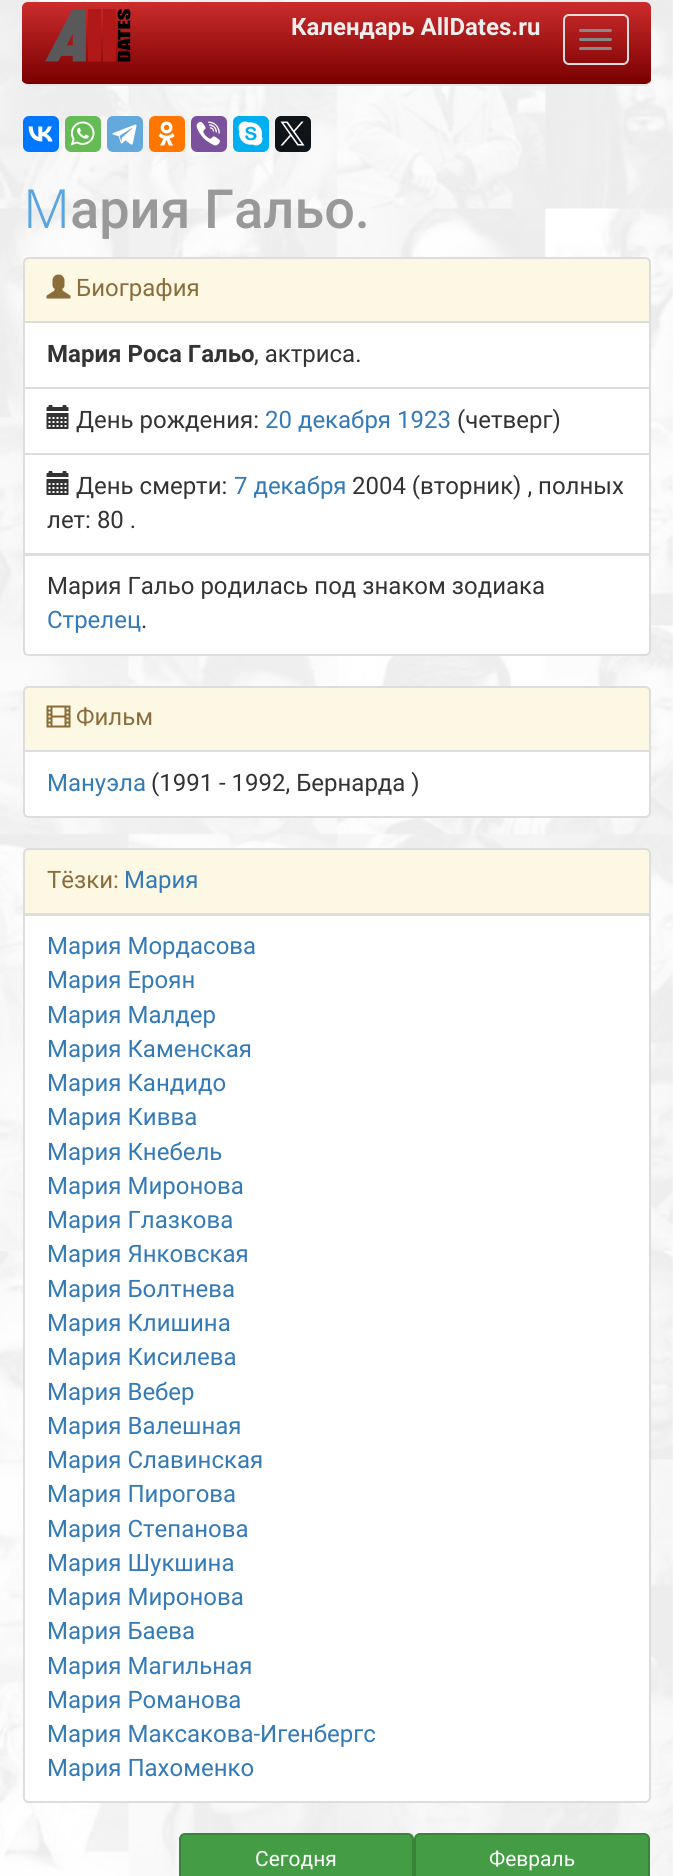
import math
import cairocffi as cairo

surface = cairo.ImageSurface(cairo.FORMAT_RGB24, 673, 1876)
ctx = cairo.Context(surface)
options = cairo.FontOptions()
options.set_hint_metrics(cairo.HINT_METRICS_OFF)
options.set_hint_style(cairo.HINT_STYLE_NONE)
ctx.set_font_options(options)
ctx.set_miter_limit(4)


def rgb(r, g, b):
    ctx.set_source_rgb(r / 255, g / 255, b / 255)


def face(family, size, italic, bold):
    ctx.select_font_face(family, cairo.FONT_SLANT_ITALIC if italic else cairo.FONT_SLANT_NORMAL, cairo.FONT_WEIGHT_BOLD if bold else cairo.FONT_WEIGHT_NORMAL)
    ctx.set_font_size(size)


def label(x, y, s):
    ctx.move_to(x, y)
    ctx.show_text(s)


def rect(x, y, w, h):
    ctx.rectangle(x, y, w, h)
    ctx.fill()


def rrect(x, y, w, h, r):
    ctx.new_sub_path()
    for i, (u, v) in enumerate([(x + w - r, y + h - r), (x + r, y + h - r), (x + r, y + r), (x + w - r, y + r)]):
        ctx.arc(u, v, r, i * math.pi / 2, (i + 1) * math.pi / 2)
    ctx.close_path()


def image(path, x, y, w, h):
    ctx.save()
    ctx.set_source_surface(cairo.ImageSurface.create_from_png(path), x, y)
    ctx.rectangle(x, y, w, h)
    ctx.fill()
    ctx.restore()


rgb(255, 255, 255)
ctx.paint()
image('image0.png', 0, 0, 673, 1876)
gradient = cairo.LinearGradient(337, 1.5, 337, 84)
gradient.add_color_stop_rgba(0, 0.8, 0.173, 0.173, 1)
gradient.add_color_stop_rgba(1, 0.478, 0, 0, 1)
ctx.set_source(gradient)
ctx.new_path()
ctx.move_to(28, 2)
ctx.line_to(645, 2)
ctx.curve_to(648, 2, 651, 4, 651, 8)
ctx.line_to(651, 80)
ctx.curve_to(651, 82, 648, 84, 645, 84)
ctx.line_to(28, 84)
ctx.curve_to(25, 84, 22, 82, 22, 80)
ctx.line_to(22, 8)
ctx.curve_to(22, 4, 25, 2, 28, 2)
ctx.close_path()
ctx.fill()
rgb(231, 231, 231)
rect(26, 84, 622, 2)
image('image1.png', 45, 9, 86, 53)
face('Roboto', 24, 0, 1)
rgb(238, 238, 238)
label(291, 35, 'Календарь AllDates.ru')
rrect(564, 15, 64, 49, 5)
rgb(221, 221, 221)
ctx.stroke()
rgb(136, 136, 136)
rrect(579, 29, 33, 3, 1.5)
ctx.fill()
rrect(579, 38, 33, 3, 1.5)
ctx.fill()
rrect(579, 47, 33, 3, 1.5)
ctx.fill()
rgb(0, 119, 255)
rrect(23, 116, 36, 36, 6)
ctx.fill()
image('image2.png', 28, 126, 25, 16)
rgb(101, 188, 84)
rrect(65, 116, 36, 36, 6)
ctx.fill()
image('image3.png', 70, 121, 25, 25)
rgb(100, 169, 220)
rrect(107, 116, 36, 36, 6)
ctx.fill()
image('image4.png', 112, 124, 25, 21)
rgb(255, 119, 0)
rrect(149, 116, 36, 36, 6)
ctx.fill()
image('image5.png', 158, 121, 17, 25)
rgb(123, 81, 157)
rrect(191, 116, 36, 36, 6)
ctx.fill()
image('image6.png', 196, 121, 24, 25)
rgb(0, 175, 240)
rrect(233, 116, 36, 36, 6)
ctx.fill()
image('image7.png', 238, 121, 25, 25)
rgb(15, 20, 25)
rrect(275, 116, 36, 36, 6)
ctx.fill()
image('image8.png', 280, 121, 25, 25)
face('Noto Sans Light', 54, 0, 0)
rgb(90, 164, 224)
label(23, 228, 'М')
face('Roboto Medium', 54, 0, 0)
rgb(153, 153, 153)
label(70, 228, 'ария Гальо.')
rgb(252, 248, 227)
ctx.new_path()
ctx.move_to(29, 258)
ctx.line_to(645, 258)
ctx.curve_to(648, 258, 650, 260, 650, 263)
ctx.line_to(650, 322)
ctx.line_to(24, 322)
ctx.line_to(24, 263)
ctx.curve_to(24, 260, 26, 258, 29, 258)
ctx.close_path()
ctx.fill_preserve()
rgb(221, 221, 221)
ctx.stroke()
image('image9.png', 46, 274, 25, 25)
face('Roboto', 24, 0, 0)
rgb(138, 109, 59)
label(76, 296, 'Биография')
rgb(255, 255, 255)
ctx.rectangle(24, 322, 626, 66)
ctx.fill_preserve()
rgb(221, 221, 221)
ctx.stroke()
face('Roboto', 24, 0, 1)
rgb(51, 51, 51)
label(47, 362, 'Мария Роса Гальо')
face('Roboto', 24, 0, 0)
label(254, 362, ', актриса.')
rgb(255, 255, 255)
ctx.rectangle(24, 388, 626, 66)
ctx.fill_preserve()
rgb(221, 221, 221)
ctx.stroke()
image('image10.png', 46, 405, 23, 24)
rgb(51, 51, 51)
label(76, 428, 'День рождения:')
rgb(51, 122, 183)
label(265, 428, '20 декабря 1923')
rgb(51, 51, 51)
label(457, 428, '(четверг)')
rgb(255, 255, 255)
ctx.rectangle(24, 454, 626, 100)
ctx.fill_preserve()
rgb(221, 221, 221)
ctx.stroke()
image('image10.png', 46, 471, 23, 24)
rgb(51, 51, 51)
label(76, 494, 'День смерти:')
rgb(51, 122, 183)
label(234, 494, '7 декабря')
rgb(51, 51, 51)
label(352, 494, '2004 (вторник) , полных')
label(47, 528, 'лет: 80 .')
rgb(255, 255, 255)
ctx.new_path()
ctx.move_to(24, 555)
ctx.line_to(650, 555)
ctx.line_to(650, 650)
ctx.curve_to(650, 653, 648, 655, 645, 655)
ctx.line_to(29, 655)
ctx.curve_to(26, 655, 24, 653, 24, 650)
ctx.close_path()
ctx.fill_preserve()
rgb(221, 221, 221)
ctx.stroke()
rgb(51, 51, 51)
label(47, 594, 'Мария Гальо родилась под знаком зодиака')
rgb(51, 122, 183)
label(47, 628, 'Стрелец')
rgb(51, 51, 51)
label(141, 628, '.')
rgb(252, 248, 227)
ctx.new_path()
ctx.move_to(29, 687)
ctx.line_to(645, 687)
ctx.curve_to(648, 687, 650, 689, 650, 692)
ctx.line_to(650, 751)
ctx.line_to(24, 751)
ctx.line_to(24, 692)
ctx.curve_to(24, 689, 26, 687, 29, 687)
ctx.close_path()
ctx.fill_preserve()
rgb(221, 221, 221)
ctx.stroke()
image('image11.png', 46, 705, 25, 23)
rgb(138, 109, 59)
label(76, 725, 'Фильм')
rgb(255, 255, 255)
ctx.new_path()
ctx.move_to(24, 751)
ctx.line_to(650, 751)
ctx.line_to(650, 812)
ctx.curve_to(650, 815, 648, 817, 645, 817)
ctx.line_to(29, 817)
ctx.curve_to(26, 817, 24, 815, 24, 812)
ctx.close_path()
ctx.fill_preserve()
rgb(221, 221, 221)
ctx.stroke()
rgb(51, 122, 183)
label(47, 791, 'Мануэла')
rgb(51, 51, 51)
label(151, 791, '(1991 - 1992, Бернарда )')
rgb(252, 248, 227)
ctx.new_path()
ctx.move_to(29, 849)
ctx.line_to(645, 849)
ctx.curve_to(648, 849, 650, 851, 650, 854)
ctx.line_to(650, 914)
ctx.line_to(24, 914)
ctx.line_to(24, 854)
ctx.curve_to(24, 851, 26, 849, 29, 849)
ctx.close_path()
ctx.fill_preserve()
rgb(221, 221, 221)
ctx.stroke()
rgb(138, 109, 59)
label(47, 888, 'Тёзки:')
rgb(51, 122, 183)
label(124, 888, 'Мария')
rgb(255, 255, 255)
ctx.new_path()
ctx.move_to(24, 915)
ctx.line_to(650, 915)
ctx.line_to(650, 1797)
ctx.curve_to(650, 1800, 648, 1802, 645, 1802)
ctx.line_to(29, 1802)
ctx.curve_to(26, 1802, 24, 1800, 24, 1797)
ctx.close_path()
ctx.fill_preserve()
rgb(221, 221, 221)
ctx.stroke()
rgb(51, 122, 183)
label(47, 954, 'Мария Мордасова')
label(47, 988, 'Мария Ероян')
label(47, 1023, 'Мария Малдер')
label(47, 1057, 'Мария Каменская')
label(47, 1091, 'Мария Кандидо')
label(47, 1125, 'Мария Кивва')
label(47, 1160, 'Мария Кнебель')
label(47, 1194, 'Мария Миронова')
label(47, 1228, 'Мария Глазкова')
label(47, 1262, 'Мария Янковская')
label(47, 1297, 'Мария Болтнева')
label(47, 1331, 'Мария Клишина')
label(47, 1365, 'Мария Кисилева')
label(47, 1400, 'Мария Вебер')
label(47, 1434, 'Мария Валешная')
label(47, 1468, 'Мария Славинская')
label(47, 1502, 'Мария Пирогова')
label(47, 1537, 'Мария Степанова')
label(47, 1571, 'Мария Шукшина')
label(47, 1605, 'Мария Миронова')
label(47, 1639, 'Мария Баева')
label(47, 1674, 'Мария Магильная')
label(47, 1708, 'Мария Романова')
label(47, 1742, 'Мария Максакова-Игенбергс')
label(47, 1776, 'Мария Пахоменко')
rgb(68, 157, 68)
rrect(180, 1834, 233, 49, 5)
ctx.fill_preserve()
rgb(57, 132, 57)
ctx.stroke()
face('Roboto', 21, 0, 0)
rgb(255, 255, 255)
label(255, 1866, 'Сегодня')
rgb(68, 157, 68)
rrect(415, 1834, 234, 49, 5)
ctx.fill_preserve()
rgb(57, 132, 57)
ctx.stroke()
rgb(255, 255, 255)
label(489, 1866, 'Февраль')
surface.write_to_png('render.png')
